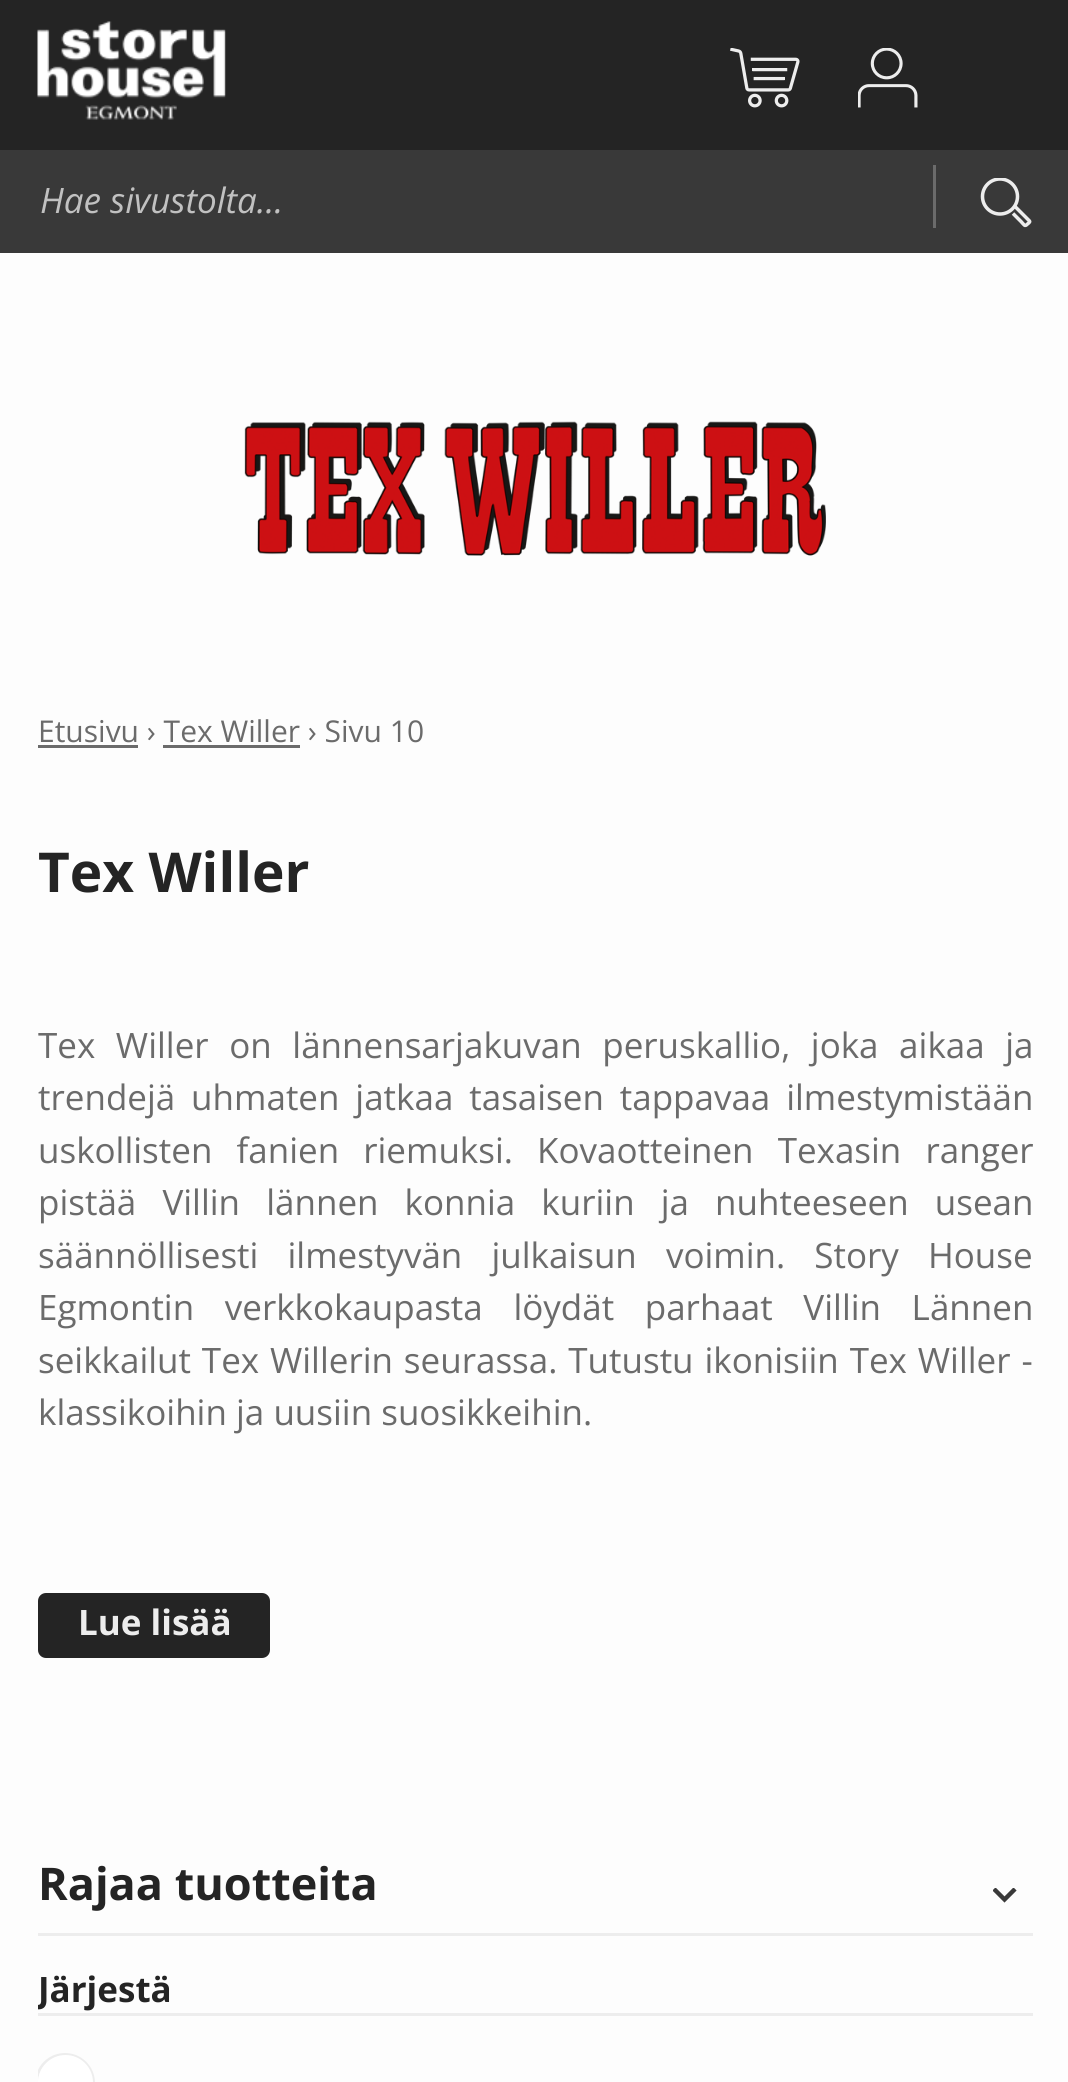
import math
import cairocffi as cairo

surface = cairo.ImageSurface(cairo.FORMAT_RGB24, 1068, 2082)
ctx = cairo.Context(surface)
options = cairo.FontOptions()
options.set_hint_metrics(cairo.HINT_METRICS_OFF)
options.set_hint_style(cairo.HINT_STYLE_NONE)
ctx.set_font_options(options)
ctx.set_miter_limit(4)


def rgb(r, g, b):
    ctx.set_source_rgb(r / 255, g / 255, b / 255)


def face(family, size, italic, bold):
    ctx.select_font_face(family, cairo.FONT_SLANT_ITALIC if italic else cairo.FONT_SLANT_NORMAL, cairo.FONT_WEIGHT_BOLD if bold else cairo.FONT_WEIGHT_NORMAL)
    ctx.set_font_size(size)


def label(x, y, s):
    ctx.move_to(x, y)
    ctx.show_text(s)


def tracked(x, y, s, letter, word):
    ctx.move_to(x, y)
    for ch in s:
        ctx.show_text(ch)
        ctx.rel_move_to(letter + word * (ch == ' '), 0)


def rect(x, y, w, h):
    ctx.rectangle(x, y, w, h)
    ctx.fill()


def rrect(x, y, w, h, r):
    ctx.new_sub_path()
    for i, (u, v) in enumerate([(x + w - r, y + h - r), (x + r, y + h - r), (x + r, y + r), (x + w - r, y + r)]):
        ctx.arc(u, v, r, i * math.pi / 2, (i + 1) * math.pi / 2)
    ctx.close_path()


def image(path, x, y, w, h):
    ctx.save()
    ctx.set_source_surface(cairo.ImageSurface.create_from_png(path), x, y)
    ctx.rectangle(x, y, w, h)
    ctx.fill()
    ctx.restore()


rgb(253, 253, 253)
ctx.paint()
rgb(36, 36, 36)
rect(0, 0, 1068, 150)
image('image0.png', 37, 21, 189, 99)
image('image1.png', 730, 48, 70, 60)
image('image2.png', 858, 48, 60, 60)
rgb(57, 57, 57)
rect(0, 150, 1068, 103)
rgb(107, 107, 107)
rect(933, 165, 3, 63)
face('Open Sans', 35, 1, 0)
rgb(193, 193, 193)
label(40, 213, 'Hae sivustolta…')
ctx.new_path()
ctx.move_to(1014.5, 206)
ctx.line_to(1029.5, 221)
ctx.curve_to(1030.5, 222, 1028, 223.5, 1027.5, 224)
ctx.curve_to(1024.5, 227, 1024.5, 225, 1021, 221.5)
ctx.line_to(1013, 213.5)
rgb(237, 237, 237)
ctx.set_line_width(3.5)
ctx.set_line_join(cairo.LINE_JOIN_ROUND)
ctx.stroke()
ctx.save()
ctx.rectangle(980, 178, 53, 50)
ctx.clip()
ctx.arc(1000, 196.5, 17.5, 0, 2 * math.pi)
ctx.set_line_join(cairo.LINE_JOIN_MITER)
ctx.stroke()
ctx.restore()
image('image3.png', 244, 421, 582, 135)
face('Open Sans', 30, 0, 0)
rgb(107, 107, 107)
label(38, 742, 'Etusivu › Tex Willer › Sivu 10')
rect(38, 745, 100, 3)
rect(163, 745, 137, 3)
face('Open Sans', 55, 0, 1)
rgb(36, 36, 36)
label(38, 892, 'Tex Willer')
ctx.save()
ctx.rectangle(38, 1018, 995, 640)
ctx.clip()
face('Open Sans', 35, 0, 0)
rgb(107, 107, 107)
tracked(38, 1058, 'Tex Willer on lännensarjakuvan peruskallio, joka aikaa ja', 0, 11.5)
ctx.restore()
face('Open Sans', 35, 0, 0)
rgb(107, 107, 107)
tracked(38, 1110, 'trendejä uhmaten jatkaa tasaisen tappavaa ilmestymistään', 0, 6.75)
tracked(38, 1163, 'uskollisten fanien riemuksi. Kovaotteinen Texasin ranger', 0, 15)
tracked(38, 1215, 'pistää Villin lännen konnia kuriin ja nuhteeseen usean', 0, 17)
tracked(38, 1268, 'säännöllisesti ilmestyvän julkaisun voimin. Story House', 0, 20)
tracked(38, 1320, 'Egmontin verkkokaupasta löydät parhaat Villin Lännen', 0, 21.5)
tracked(38, 1373, 'seikkailut Tex Willerin seurassa. Tutustu ikonisiin Tex Willer -', 0, 1.75)
label(38, 1425, 'klassikoihin ja uusiin suosikkeihin.')
rgb(36, 36, 36)
rrect(38, 1593, 232, 65, 8)
ctx.fill()
face('Open Sans', 35, 0, 1)
rgb(237, 237, 237)
label(78, 1635, 'Lue lisää')
rect(38, 1933, 995, 3)
face('Open Sans', 45, 0, 1)
rgb(36, 36, 36)
label(38, 1900, 'Rajaa tuotteita')
ctx.save()
ctx.rectangle(993, 1888, 25, 15)
ctx.clip()
ctx.new_path()
ctx.move_to(1013.5, 1890.5)
ctx.line_to(1004.5, 1899.5)
ctx.line_to(995.5, 1890.5)
rgb(57, 57, 57)
ctx.set_line_width(4.4)
ctx.set_line_cap(cairo.LINE_CAP_SQUARE)
ctx.set_line_join(cairo.LINE_JOIN_MITER)
ctx.stroke()
ctx.restore()
rgb(237, 237, 237)
rect(38, 2013, 995, 3)
ctx.save()
ctx.rectangle(38, 253, 995, 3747)
ctx.clip()
face('Open Sans', 35, 0, 1)
rgb(36, 36, 36)
label(38, 2002, 'Järjestä')
ctx.new_path()
ctx.arc(65, 2083, 28.5, 0, 2 * math.pi)
rgb(237, 237, 237)
ctx.set_line_width(3)
ctx.set_line_join(cairo.LINE_JOIN_MITER)
ctx.stroke()
ctx.restore()
rgb(255, 255, 255)
ctx.arc(65.5, 2082.5, 27.5, 0, 2 * math.pi)
ctx.fill()
surface.write_to_png('render.png')
